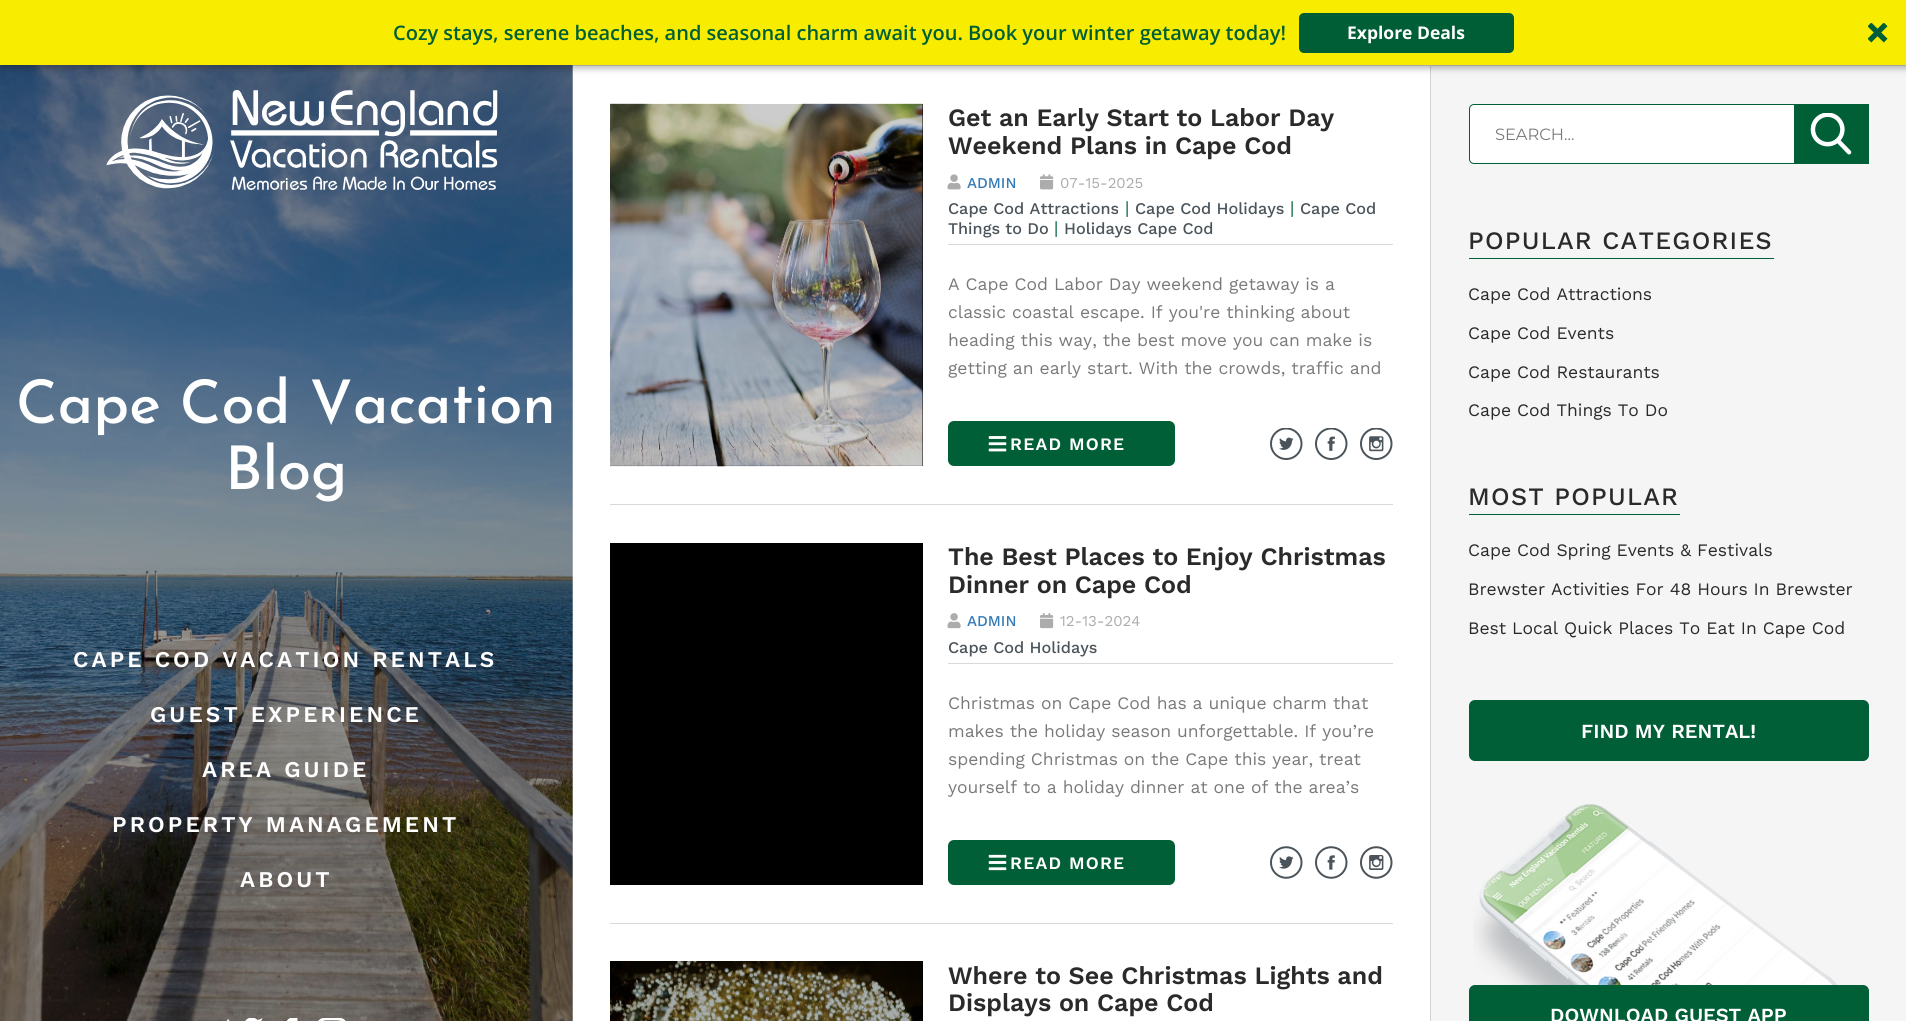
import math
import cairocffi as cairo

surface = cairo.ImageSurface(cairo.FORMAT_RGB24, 1906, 1021)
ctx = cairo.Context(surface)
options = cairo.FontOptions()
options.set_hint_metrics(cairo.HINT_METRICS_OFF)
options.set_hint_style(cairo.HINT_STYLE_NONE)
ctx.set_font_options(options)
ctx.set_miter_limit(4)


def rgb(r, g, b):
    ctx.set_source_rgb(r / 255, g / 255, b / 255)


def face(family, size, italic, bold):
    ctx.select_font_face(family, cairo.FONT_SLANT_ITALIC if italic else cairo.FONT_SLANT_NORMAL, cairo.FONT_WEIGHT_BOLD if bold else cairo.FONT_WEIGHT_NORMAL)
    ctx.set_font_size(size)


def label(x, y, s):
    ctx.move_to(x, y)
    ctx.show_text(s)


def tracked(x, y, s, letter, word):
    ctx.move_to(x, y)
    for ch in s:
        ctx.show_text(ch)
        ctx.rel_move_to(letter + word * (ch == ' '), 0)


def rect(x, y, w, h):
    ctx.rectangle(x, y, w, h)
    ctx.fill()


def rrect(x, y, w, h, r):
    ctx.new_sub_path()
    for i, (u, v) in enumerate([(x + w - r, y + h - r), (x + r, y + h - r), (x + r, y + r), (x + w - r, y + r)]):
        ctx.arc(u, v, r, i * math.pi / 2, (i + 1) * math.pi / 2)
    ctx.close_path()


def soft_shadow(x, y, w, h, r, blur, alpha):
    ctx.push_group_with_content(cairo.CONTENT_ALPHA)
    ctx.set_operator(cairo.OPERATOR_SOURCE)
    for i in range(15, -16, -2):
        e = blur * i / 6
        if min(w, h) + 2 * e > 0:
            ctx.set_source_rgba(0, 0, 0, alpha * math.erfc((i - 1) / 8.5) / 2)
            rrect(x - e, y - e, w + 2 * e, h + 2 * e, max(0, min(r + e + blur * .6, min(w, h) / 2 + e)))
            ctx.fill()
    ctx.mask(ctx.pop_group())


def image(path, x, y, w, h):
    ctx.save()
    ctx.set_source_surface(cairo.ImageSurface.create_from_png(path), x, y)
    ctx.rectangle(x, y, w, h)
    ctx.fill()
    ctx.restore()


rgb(245, 245, 245)
ctx.paint()
image('image1.png', 0, 65, 573, 956)
rgb(255, 255, 255)
rect(573, 66, 857, 955)
rgb(217, 217, 217)
rect(573, 65, 857, 1)
rgb(211, 211, 211)
ctx.new_path()
ctx.move_to(1430, 65)
ctx.line_to(1906, 65)
ctx.line_to(1906, 66)
ctx.line_to(1431, 66)
ctx.close_path()
ctx.fill()
ctx.set_source_rgba(0.624, 0.624, 0.624, 0.4)
ctx.new_path()
ctx.move_to(1430, 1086)
ctx.line_to(1430, 65)
ctx.line_to(1431, 66)
ctx.line_to(1431, 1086)
ctx.close_path()
ctx.fill()
rgb(0, 0, 0)
soft_shadow(1, 4, 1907, 65, 0, 3, 0.25)
rgb(248, 237, 0)
rect(0, 0, 1906, 65)
face('Open Sans SemiBold', 20, 0, 0)
rgb(0, 95, 54)
label(393, 40, 'Cozy stays, serene beaches, and seasonal charm await you. Book your winter getaway today!')
rgb(0, 94, 54)
rrect(1299, 13, 215, 40, 5)
ctx.fill()
face('Open Sans', 17.5, 0, 1)
rgb(255, 255, 255)
label(1347, 39, 'Explore Deals')
image('image0.png', 1868, 23, 20, 20)
image('image2.png', 106, 90, 392, 100)
face('Josefin Sans Medium', 60, 0, 0)
label(16, 423, 'Cape Cod Vacation')
label(225, 489, 'Blog')
face('Work Sans SemiBold', 22.5, 0, 0)
tracked(73, 667, 'CAPE COD VACATION RENTALS', 3.1, 0)
tracked(150, 722, 'GUEST EXPERIENCE', 3.1, 0)
tracked(202, 777, 'AREA GUIDE', 3.1, 0)
tracked(112, 832, 'PROPERTY MANAGEMENT', 3.1, 0)
tracked(240, 887, 'ABOUT', 3.1, 0)
image('image3.png', 227, 1018, 36, 3)
image('image4.png', 287, 1018, 11, 3)
image('image5.png', 318, 1018, 28, 3)
rgb(217, 217, 217)
rect(610, 504, 783, 1)
rgb(0, 0, 0)
rect(610, 104, 313, 362)
image('image6.png', 610, 103, 313, 364)
face('Work Sans SemiBold', 25, 0, 0)
rgb(42, 42, 42)
label(948, 126, 'Get an Early Start to Labor Day')
label(948, 154, 'Weekend Plans in Cape Cod')
image('image7.png', 947, 174, 14, 16)
face('Work Sans Medium', 15, 0, 0)
rgb(51, 122, 183)
label(967, 188, 'ADMIN')
image('image8.png', 1040, 174, 14, 16)
face('Work Sans', 15, 0, 0)
rgb(172, 172, 172)
label(1060, 188, '07-15-2025')
face('Work Sans Medium', 16.25, 0, 0)
rgb(74, 84, 90)
label(948, 214, 'Cape Cod Attractions')
face('Work Sans', 17.5, 0, 0)
rgb(0, 95, 54)
label(1125, 214, '|')
face('Work Sans Medium', 16.25, 0, 0)
rgb(74, 84, 90)
label(1135, 214, 'Cape Cod Holidays')
face('Work Sans', 17.5, 0, 0)
rgb(0, 95, 54)
label(1290, 214, '|')
face('Work Sans Medium', 16.25, 0, 0)
rgb(74, 84, 90)
label(1300, 214, 'Cape Cod')
label(948, 234, 'Things to Do')
face('Work Sans', 17.5, 0, 0)
rgb(0, 95, 54)
label(1054, 234, '|')
face('Work Sans Medium', 16.25, 0, 0)
rgb(74, 84, 90)
label(1064, 234, 'Holidays Cape Cod')
rgb(217, 217, 217)
rect(948, 244, 445, 1)
face('Work Sans', 17.5, 0, 0)
rgb(122, 122, 122)
label(948, 290, 'A Cape Cod Labor Day weekend getaway is a')
label(948, 318, 'classic coastal escape. If you\'re thinking about')
label(948, 346, 'heading this way, the best move you can make is')
label(948, 374, 'getting an early start. With the crowds, traffic and')
rgb(0, 95, 54)
rrect(948, 421, 227, 45, 6)
ctx.fill()
image('image9.png', 988, 436, 19, 16)
face('Work Sans SemiBold', 17.5, 0, 0)
rgb(255, 255, 255)
tracked(1010, 450, 'READ MORE', 1.25, 0)
image('image10.png', 1270, 428, 33, 32)
image('image11.png', 1315, 428, 33, 32)
image('image12.png', 1360, 428, 33, 32)
rgb(217, 217, 217)
rect(610, 923, 783, 1)
rgb(0, 0, 0)
rect(610, 543, 313, 342)
face('Work Sans SemiBold', 25, 0, 0)
rgb(42, 42, 42)
label(948, 565, 'The Best Places to Enjoy Christmas')
label(948, 593, 'Dinner on Cape Cod')
image('image13.png', 947, 613, 14, 16)
face('Work Sans Medium', 15, 0, 0)
rgb(51, 122, 183)
label(967, 626, 'ADMIN')
image('image14.png', 1040, 613, 14, 16)
face('Work Sans', 15, 0, 0)
rgb(172, 172, 172)
label(1060, 626, '12-13-2024')
face('Work Sans Medium', 16.25, 0, 0)
rgb(74, 84, 90)
label(948, 653, 'Cape Cod Holidays')
rgb(217, 217, 217)
rect(948, 663, 445, 1)
face('Work Sans', 17.5, 0, 0)
rgb(122, 122, 122)
label(948, 709, 'Christmas on Cape Cod has a unique charm that')
label(948, 737, 'makes the holiday season unforgettable. If you’re')
label(948, 765, 'spending Christmas on the Cape this year, treat')
label(948, 793, 'yourself to a holiday dinner at one of the area’s')
rgb(0, 95, 54)
rrect(948, 840, 227, 45, 6)
ctx.fill()
image('image15.png', 988, 854, 19, 17)
face('Work Sans SemiBold', 17.5, 0, 0)
rgb(255, 255, 255)
tracked(1010, 869, 'READ MORE', 1.25, 0)
image('image16.png', 1270, 846, 33, 33)
image('image17.png', 1315, 846, 33, 33)
image('image18.png', 1360, 846, 33, 33)
rgb(0, 0, 0)
rect(610, 961, 313, 60)
image('image19.png', 610, 961, 313, 60)
face('Work Sans SemiBold', 25, 0, 0)
rgb(42, 42, 42)
label(948, 984, 'Where to See Christmas Lights and')
label(948, 1011, 'Displays on Cape Cod')
rgb(255, 255, 255)
rrect(1469.5, 104.5, 399, 59, 4.5)
ctx.fill_preserve()
rgb(0, 95, 54)
ctx.set_line_width(1)
ctx.stroke()
face('Montserrat', 16.25, 0, 0)
rgb(122, 122, 122)
label(1495, 140, 'SEARCH...')
rgb(0, 95, 54)
rect(1794, 104, 75, 60)
image('image20.png', 1810, 113, 42, 42)
rect(1469, 258, 305, 1)
face('Work Sans Medium', 25, 0, 0)
rgb(42, 42, 42)
tracked(1468, 249, 'POPULAR CATEGORIES', 1.25, 0)
face('Work Sans', 17.5, 0, 0)
label(1468, 300, 'Cape Cod Attractions')
label(1468, 339, 'Cape Cod Events')
label(1468, 378, 'Cape Cod Restaurants')
label(1468, 416, 'Cape Cod Things To Do')
rgb(0, 95, 54)
rect(1469, 514, 211, 1)
face('Work Sans Medium', 25, 0, 0)
rgb(42, 42, 42)
tracked(1468, 505, 'MOST POPULAR', 1.25, 0)
face('Work Sans', 17.5, 0, 0)
label(1468, 556, 'Cape Cod Spring Events & Festivals')
label(1468, 595, 'Brewster Activities For 48 Hours In Brewster')
label(1468, 634, 'Best Local Quick Places To Eat In Cape Cod')
rgb(0, 95, 54)
rrect(1469, 700, 400, 61, 6)
ctx.fill()
face('Work Sans SemiBold', 20, 0, 0)
rgb(255, 255, 255)
label(1581, 738, 'FIND MY RENTAL!')
image('image21.png', 1473, 804, 365, 181)
rgb(0, 95, 54)
rrect(1469, 985, 400, 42, 6)
ctx.fill()
rgb(255, 255, 255)
label(1550, 1022, 'DOWNLOAD GUEST APP')
surface.write_to_png('render.png')
